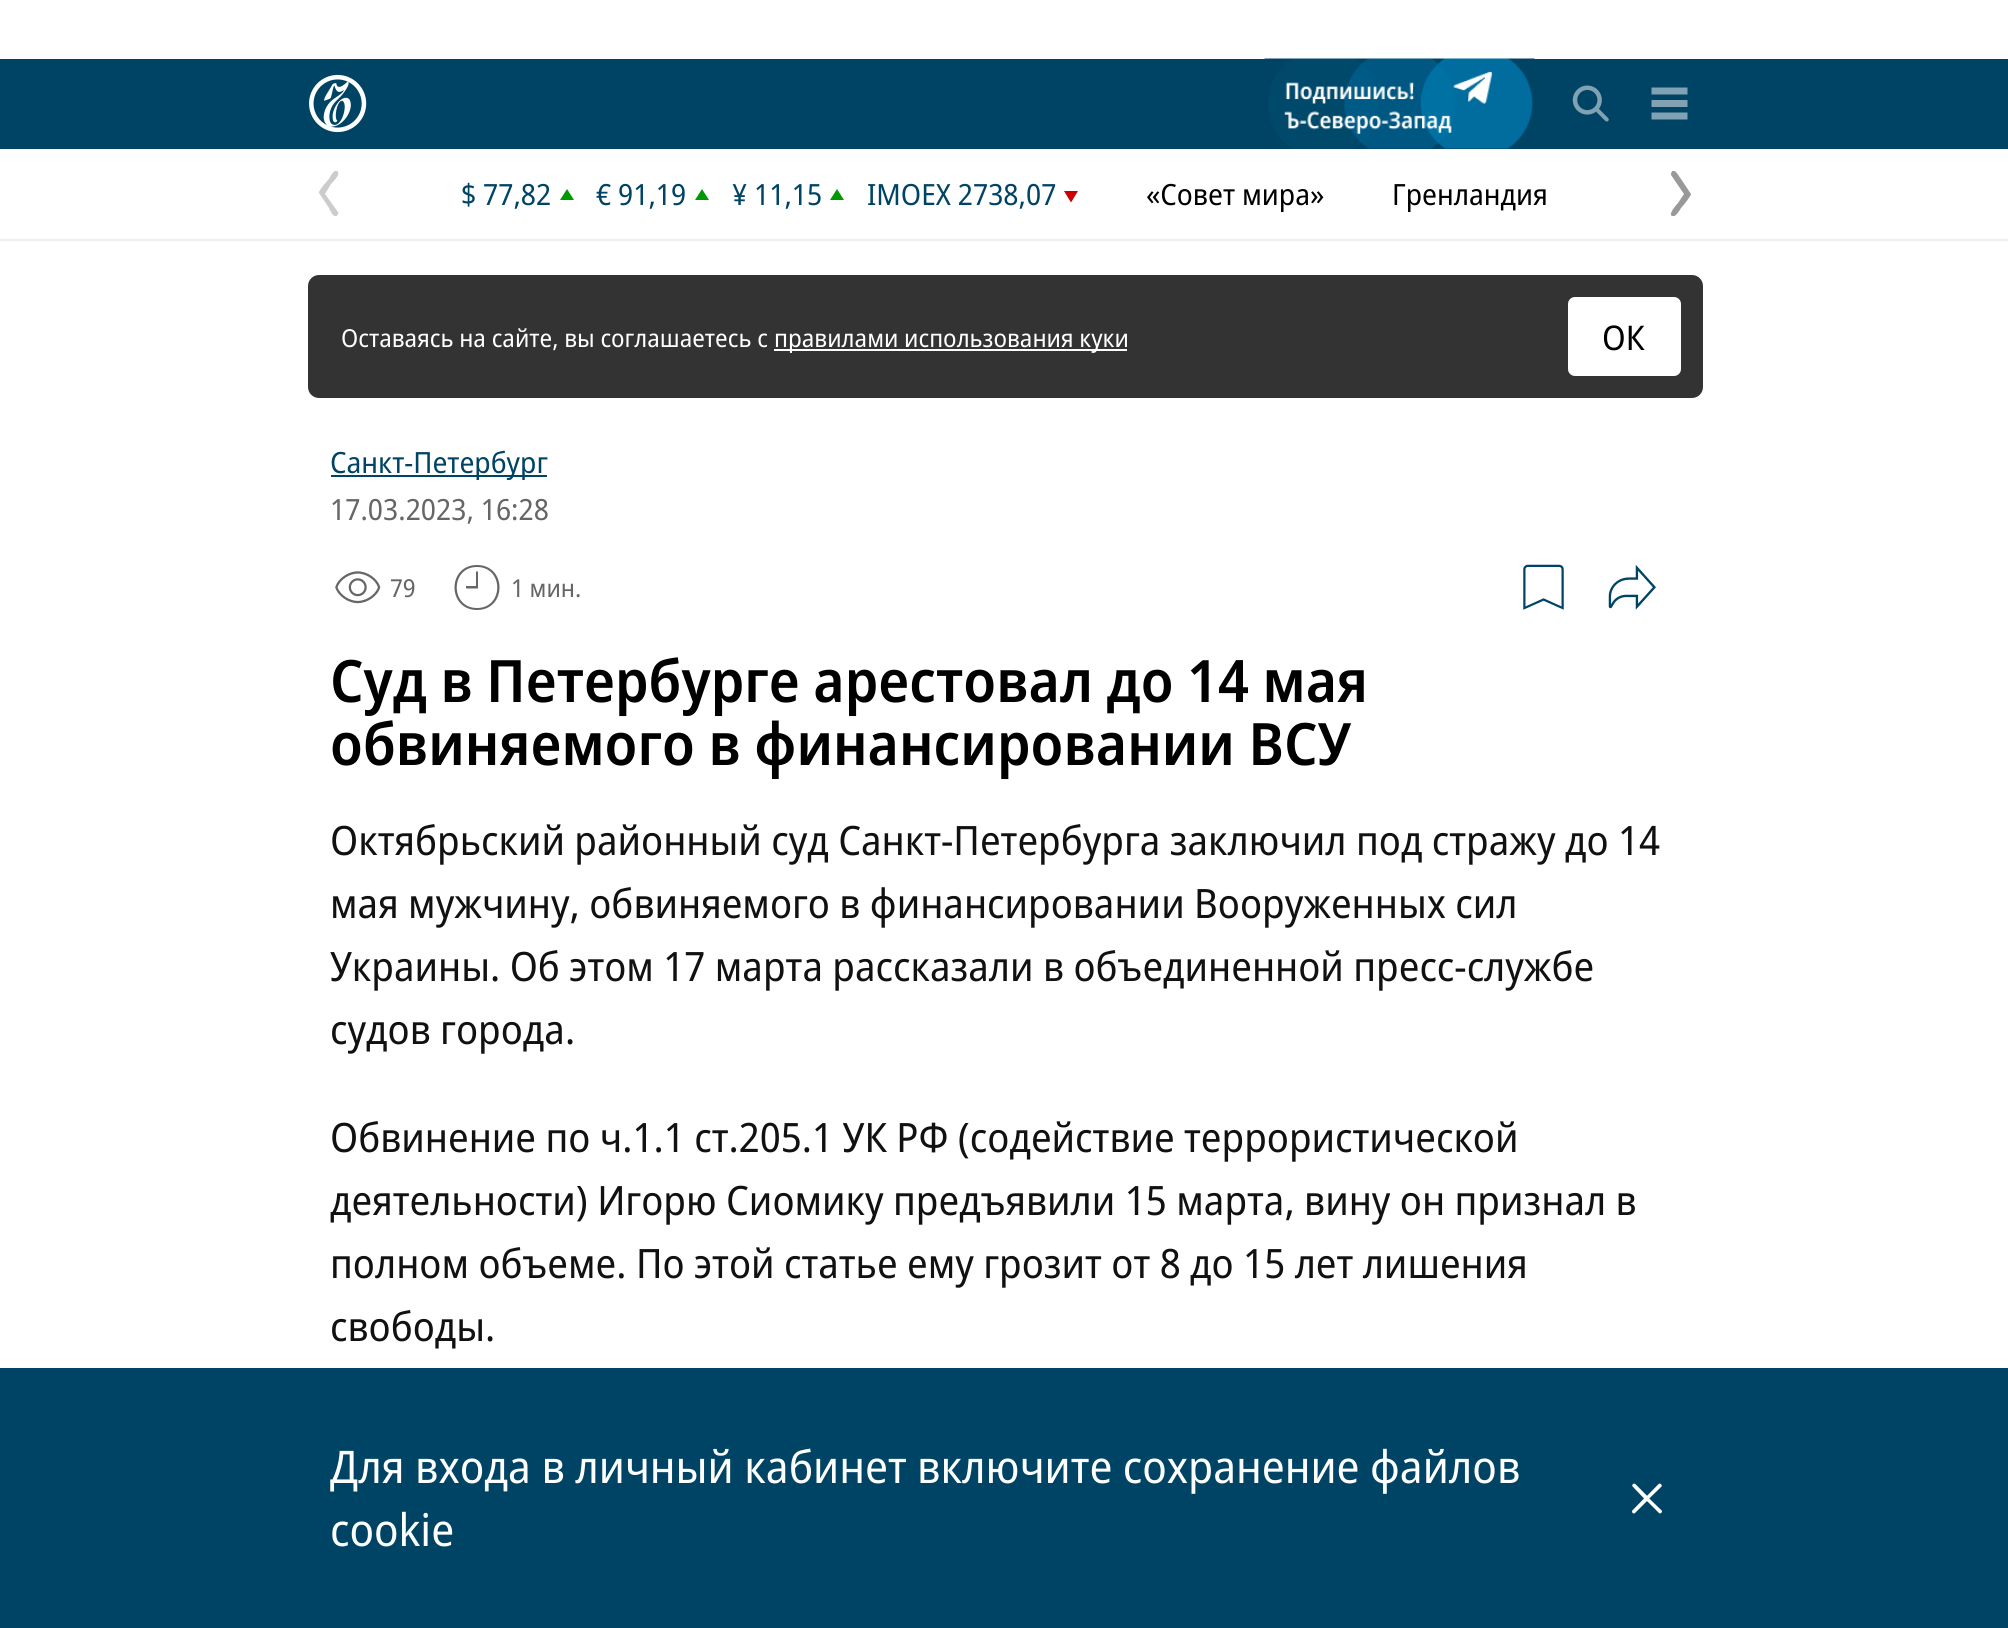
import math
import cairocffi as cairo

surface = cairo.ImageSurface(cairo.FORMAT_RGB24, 2008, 1628)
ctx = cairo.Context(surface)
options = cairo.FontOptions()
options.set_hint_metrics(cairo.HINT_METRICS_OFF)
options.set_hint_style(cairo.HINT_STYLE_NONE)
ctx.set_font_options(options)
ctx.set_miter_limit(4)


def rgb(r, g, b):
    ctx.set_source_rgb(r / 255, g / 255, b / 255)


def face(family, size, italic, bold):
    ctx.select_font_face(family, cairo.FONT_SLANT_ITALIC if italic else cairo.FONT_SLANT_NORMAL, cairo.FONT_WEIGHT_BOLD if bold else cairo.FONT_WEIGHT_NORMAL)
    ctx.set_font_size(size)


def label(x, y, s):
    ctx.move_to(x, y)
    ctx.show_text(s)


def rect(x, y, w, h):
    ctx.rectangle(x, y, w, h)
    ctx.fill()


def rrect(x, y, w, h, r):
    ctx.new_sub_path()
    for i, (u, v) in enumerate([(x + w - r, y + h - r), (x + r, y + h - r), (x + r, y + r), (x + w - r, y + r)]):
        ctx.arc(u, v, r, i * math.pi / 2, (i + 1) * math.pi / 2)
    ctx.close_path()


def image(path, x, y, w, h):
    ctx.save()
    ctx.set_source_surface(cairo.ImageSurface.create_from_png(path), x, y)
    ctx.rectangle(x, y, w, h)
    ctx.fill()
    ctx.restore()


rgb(255, 255, 255)
ctx.paint()
rgb(0, 68, 101)
rect(0, 59, 2008, 90)
image('image0.png', 309, 74, 58, 59)
image('image1.png', 1264, 58, 271, 91)
image('image2.png', 1572, 85, 37, 37)
rgb(128, 162, 178)
ctx.new_path()
ctx.move_to(1687.5, 87.5)
ctx.line_to(1687.5, 94.5)
ctx.line_to(1651.5, 94.5)
ctx.line_to(1651.5, 87.5)
ctx.close_path()
ctx.move_to(1651.5, 107)
ctx.line_to(1687.5, 107)
ctx.line_to(1687.5, 100)
ctx.line_to(1651.5, 100)
ctx.close_path()
ctx.move_to(1651.5, 119.5)
ctx.line_to(1687.5, 119.5)
ctx.line_to(1687.5, 112.5)
ctx.line_to(1651.5, 112.5)
ctx.close_path()
ctx.fill()
rgb(238, 238, 238)
rect(0, 239, 2008, 2)
ctx.save()
ctx.rectangle(308, 171, 43, 45)
ctx.clip()
rgb(204, 204, 204)
ctx.new_path()
ctx.move_to(337, 216)
ctx.curve_to(333, 218, 330, 210, 329, 208)
ctx.line_to(319, 193)
ctx.curve_to(318, 191, 327, 181, 329, 179)
ctx.curve_to(330, 177, 335, 167, 338, 172)
ctx.curve_to(340, 175, 333, 182, 331, 184)
ctx.line_to(325, 194)
ctx.line_to(338, 212)
ctx.curve_to(339, 213, 338, 215, 337, 215)
ctx.close_path()
ctx.fill()
ctx.restore()
face('Noto Sans', 29.25, 0, 0)
rgb(0, 68, 101)
label(461, 205, '$ 77,82')
rgb(0, 153, 0)
ctx.new_path()
ctx.move_to(574, 200)
ctx.line_to(560, 200)
ctx.line_to(567, 189)
ctx.close_path()
ctx.fill()
rgb(0, 68, 101)
label(596, 205, '€ 91,19')
rgb(0, 153, 0)
ctx.new_path()
ctx.move_to(709, 200)
ctx.line_to(695, 200)
ctx.line_to(702, 189)
ctx.close_path()
ctx.fill()
rgb(0, 68, 101)
label(732, 205, '¥ 11,15')
rgb(0, 153, 0)
ctx.new_path()
ctx.move_to(844, 200)
ctx.line_to(830, 200)
ctx.line_to(837, 189)
ctx.close_path()
ctx.fill()
rgb(0, 68, 101)
label(867, 205, 'IMOEX 2738,07')
rgb(204, 0, 0)
ctx.new_path()
ctx.move_to(1064, 191)
ctx.line_to(1078, 191)
ctx.line_to(1071, 202.5)
ctx.close_path()
ctx.fill()
rgb(0, 0, 0)
label(1146, 205, '«Совет мира»')
label(1392, 205, 'Гренландия')
ctx.save()
ctx.rectangle(1658, 171, 45, 45)
ctx.clip()
rgb(153, 153, 153)
ctx.new_path()
ctx.move_to(1672, 171)
ctx.curve_to(1676, 169, 1679, 177, 1681, 179)
ctx.line_to(1691, 194)
ctx.curve_to(1691, 196, 1683, 206, 1681, 208)
ctx.curve_to(1680, 210, 1674, 220, 1671, 215)
ctx.curve_to(1670, 212, 1676, 205, 1678, 203)
ctx.line_to(1684, 194)
ctx.line_to(1671, 175)
ctx.curve_to(1671, 174, 1671, 172, 1672, 172)
ctx.close_path()
ctx.fill()
ctx.restore()
rgb(51, 51, 51)
rrect(308, 275, 1395, 123, 11)
ctx.fill()
face('Noto Sans', 24.75, 0, 0)
rgb(255, 255, 255)
label(341, 347, 'Оставаясь на сайте, вы соглашаетесь с')
rect(774, 349, 353, 2)
label(774, 347, 'правилами использования куки')
rrect(1568, 297, 113, 79, 7)
ctx.fill()
face('Noto Sans', 34, 0, 0)
rgb(0, 0, 0)
label(1602, 350, 'ОК')
rgb(0, 68, 101)
rect(331, 475, 216, 2)
face('Noto Sans', 29.25, 0, 0)
label(330, 473, 'Санкт-Петербург')
rgb(102, 102, 102)
label(330, 520, '17.03.2023, 16:28')
image('image3.png', 335, 571, 46, 33)
face('Noto Sans', 24.75, 0, 0)
label(390, 597, '79')
ctx.new_path()
ctx.move_to(477, 565)
ctx.curve_to(447, 565, 447, 610, 477, 610)
ctx.curve_to(507, 610, 507, 565, 477, 565)
ctx.close_path()
ctx.move_to(477, 608)
ctx.curve_to(450, 608, 450, 567, 477, 567)
ctx.curve_to(504, 567, 504, 608, 477, 608)
ctx.close_path()
ctx.fill()
ctx.new_path()
ctx.move_to(476, 586)
ctx.line_to(466, 586)
ctx.line_to(466, 588.5)
ctx.line_to(478, 588.5)
ctx.line_to(478, 571.5)
ctx.line_to(476, 571.5)
ctx.close_path()
ctx.fill()
label(511, 597, '1 мин.')
image('image4.png', 1523, 564, 41, 46)
image('image5.png', 1608, 564, 48, 46)
face('Noto Sans SemiBold', 58.5, 0, 0)
rgb(0, 0, 0)
label(330, 702, 'Суд в Петербурге арестовал до 14 мая')
label(330, 765, 'обвиняемого в финансировании ВСУ')
face('Noto Sans', 40.5, 0, 0)
rgb(17, 17, 17)
label(330, 855, 'Октябрьский районный суд Санкт-Петербурга заключил под стражу до 14')
label(330, 918, 'мая мужчину, обвиняемого в финансировании Вооруженных сил')
label(330, 981, 'Украины. Об этом 17 марта рассказали в объединенной пресс-службе')
label(330, 1044, 'судов города.')
label(330, 1152, 'Обвинение по ч.1.1 ст.205.1 УК РФ (содействие террористической')
label(330, 1215, 'деятельности) Игорю Сиомику предъявили 15 марта, вину он признал в')
label(330, 1278, 'полном объеме. По этой статье ему грозит от 8 до 15 лет лишения')
label(330, 1341, 'свободы.')
rgb(0, 68, 101)
rect(0, 1368, 2008, 260)
face('Noto Sans', 45, 0, 0)
rgb(255, 255, 255)
label(330, 1483, 'Для входа в личный кабинет включите сохранение файлов')
label(330, 1546, 'cookie')
image('image6.png', 1632, 1483, 30, 31)
surface.write_to_png('render.png')
